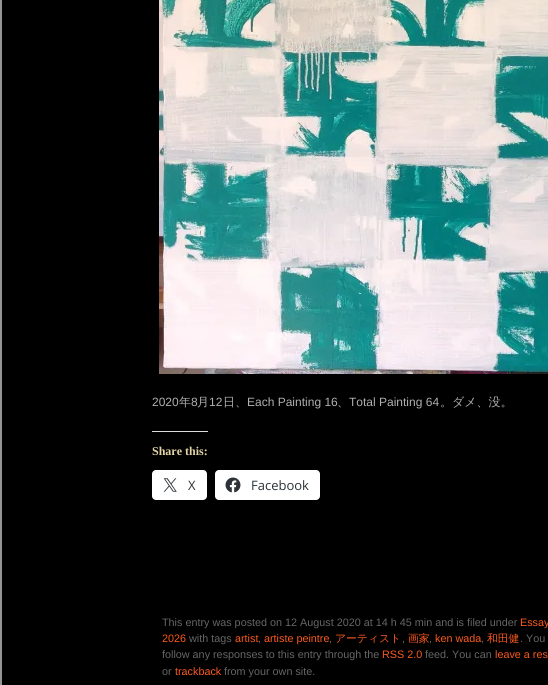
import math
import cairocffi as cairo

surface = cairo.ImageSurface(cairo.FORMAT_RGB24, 548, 685)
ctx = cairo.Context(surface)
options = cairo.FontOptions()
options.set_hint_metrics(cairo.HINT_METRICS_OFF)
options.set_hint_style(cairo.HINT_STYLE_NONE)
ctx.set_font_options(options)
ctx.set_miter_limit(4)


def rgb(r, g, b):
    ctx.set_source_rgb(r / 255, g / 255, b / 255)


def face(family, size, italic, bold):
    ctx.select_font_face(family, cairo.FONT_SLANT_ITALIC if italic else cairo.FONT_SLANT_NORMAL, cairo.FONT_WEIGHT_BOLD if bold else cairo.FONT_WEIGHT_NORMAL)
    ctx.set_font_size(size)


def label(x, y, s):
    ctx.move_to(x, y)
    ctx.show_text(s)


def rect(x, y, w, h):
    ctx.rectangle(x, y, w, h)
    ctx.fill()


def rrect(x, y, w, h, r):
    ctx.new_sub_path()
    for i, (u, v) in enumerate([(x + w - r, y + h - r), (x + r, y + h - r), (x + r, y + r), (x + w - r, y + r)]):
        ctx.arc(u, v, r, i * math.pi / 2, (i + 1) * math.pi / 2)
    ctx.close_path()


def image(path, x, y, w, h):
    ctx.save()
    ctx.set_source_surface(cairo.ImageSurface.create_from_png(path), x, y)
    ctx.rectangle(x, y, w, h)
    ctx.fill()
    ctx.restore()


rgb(0, 0, 0)
ctx.paint()
ctx.rectangle(1, -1, 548, 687)
rgb(149, 149, 150)
ctx.stroke()
image('image0.png', 159, 0, 389, 374)
face('Liberation Sans', 12, 0, 0)
rgb(176, 176, 176)
label(152, 406, '2020')
face('WenQuanYi Zen Hei Medium', 12, 0, 0)
label(179, 406, '年')
face('Liberation Sans', 12, 0, 0)
label(191, 406, '8')
face('WenQuanYi Zen Hei Medium', 12, 0, 0)
label(197, 406, '月')
face('Liberation Sans', 12, 0, 0)
label(209, 406, '12')
face('WenQuanYi Zen Hei Medium', 12, 0, 0)
label(223, 406, '日、')
face('Liberation Sans', 12, 0, 0)
label(247, 406, 'Each Painting 16')
face('WenQuanYi Zen Hei Medium', 12, 0, 0)
label(337, 406, '、')
face('Liberation Sans', 12, 0, 0)
label(349, 406, 'Total Painting 64')
face('WenQuanYi Zen Hei Medium', 12, 0, 0)
label(440, 406, '。ダメ、没。')
rgb(220, 220, 222)
rect(152, 431, 56, 1)
face('Liberation Serif', 12, 0, 1)
rgb(228, 211, 166)
label(152, 455, 'Share this:')
rgb(255, 255, 255)
rrect(152, 470, 55, 30, 4)
ctx.fill()
image('image1.png', 163, 478, 14, 14)
face('Open Sans', 13, 0, 0)
rgb(44, 51, 56)
label(188, 490, 'X')
rgb(255, 255, 255)
rrect(215, 470, 105, 30, 4)
ctx.fill()
image('image2.png', 225, 477, 16, 16)
rgb(44, 51, 56)
label(251, 490, 'Facebook')
face('Liberation Sans', 10.8, 0, 0)
rgb(102, 102, 102)
label(162, 626, 'This entry was posted on 12 August 2020 at 14 h 45 min and is filed under')
rgb(253, 90, 30)
label(520, 626, 'Essay')
label(162, 642, '2026')
rgb(102, 102, 102)
label(189, 642, 'with tags')
rgb(253, 90, 30)
label(235, 642, 'artist')
rgb(102, 102, 102)
label(258, 642, ',')
rgb(253, 90, 30)
label(264, 642, 'artiste peintre')
rgb(102, 102, 102)
label(329, 642, ',')
face('WenQuanYi Zen Hei Medium', 10.8, 0, 0)
rgb(253, 90, 30)
label(335, 642, 'アーティスト')
face('Liberation Sans', 10.8, 0, 0)
rgb(102, 102, 102)
label(402, 642, ',')
face('WenQuanYi Zen Hei Medium', 10.8, 0, 0)
rgb(253, 90, 30)
label(408, 642, '画家')
face('Liberation Sans', 10.8, 0, 0)
rgb(102, 102, 102)
label(429, 642, ',')
rgb(253, 90, 30)
label(435, 642, 'ken wada')
rgb(102, 102, 102)
label(481, 642, ',')
face('WenQuanYi Zen Hei Medium', 10.8, 0, 0)
rgb(253, 90, 30)
label(487, 642, '和田健')
face('Liberation Sans', 10.8, 0, 0)
rgb(102, 102, 102)
label(520, 642, '. You')
label(162, 658, 'follow any responses to this entry through the')
rgb(253, 90, 30)
label(382, 658, 'RSS 2.0')
rgb(102, 102, 102)
label(425, 658, 'feed. You can')
rgb(253, 90, 30)
label(495, 658, 'leave a res')
rgb(102, 102, 102)
label(162, 675, 'or')
rgb(253, 90, 30)
label(175, 675, 'trackback')
rgb(102, 102, 102)
label(224, 675, 'from your own site.')
surface.write_to_png('render.png')
